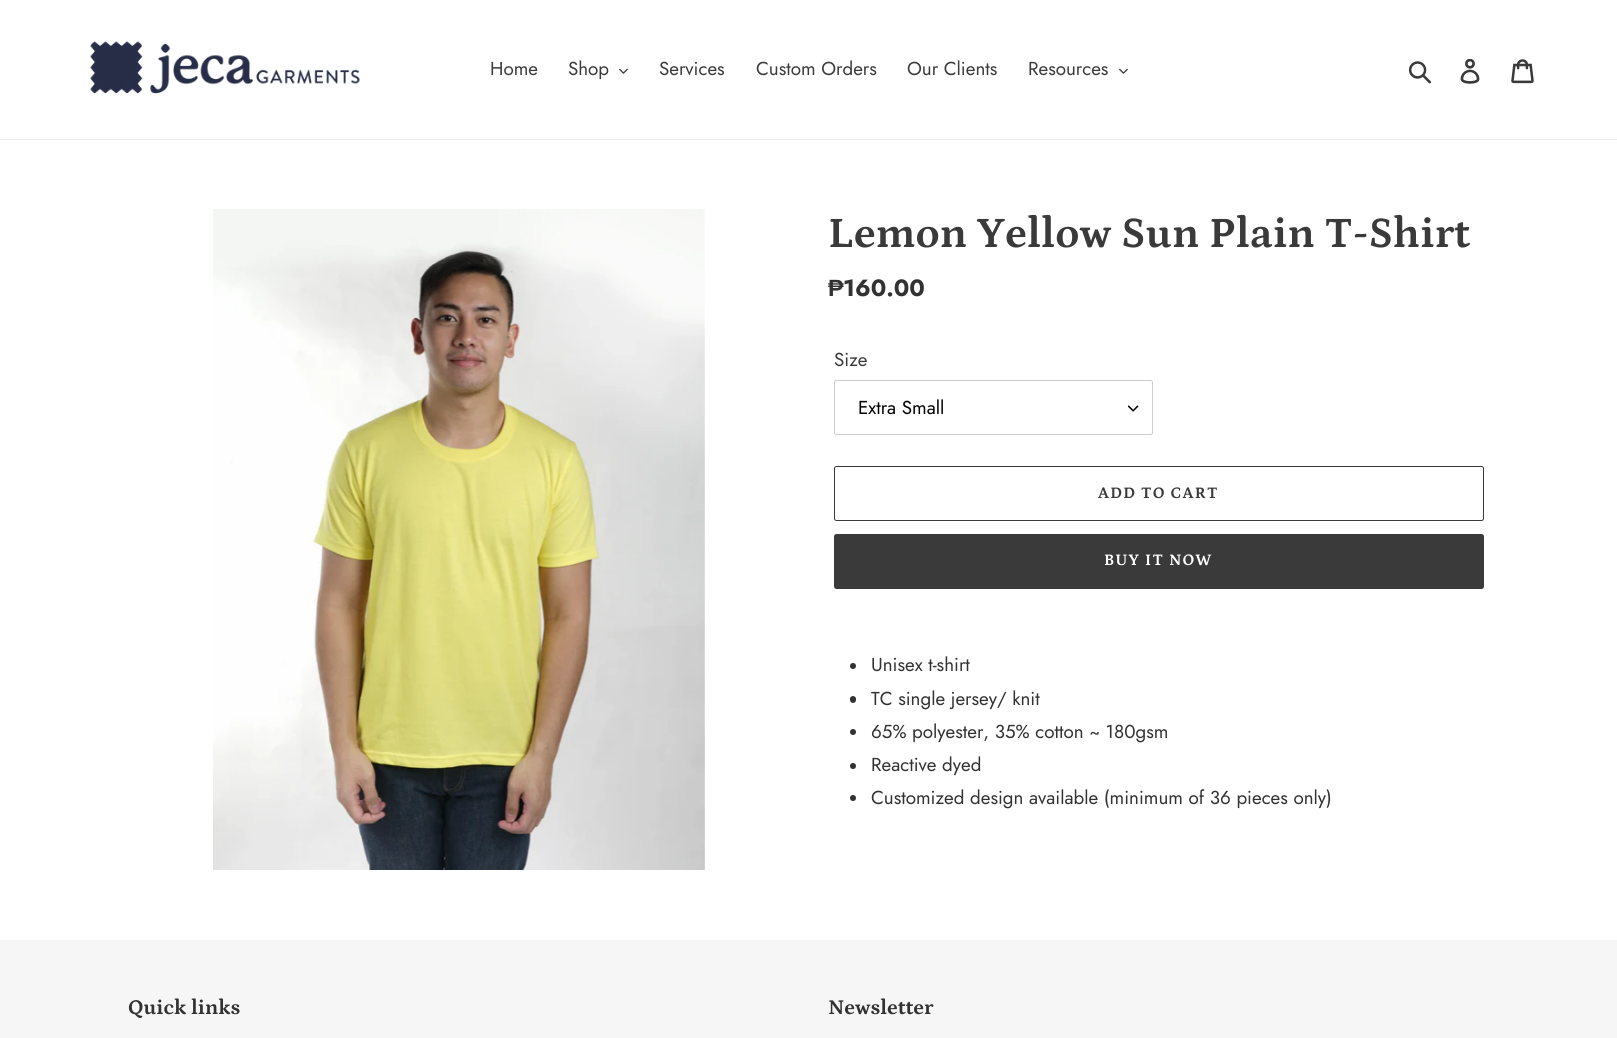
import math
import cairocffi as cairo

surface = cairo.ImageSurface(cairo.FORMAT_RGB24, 1617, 1038)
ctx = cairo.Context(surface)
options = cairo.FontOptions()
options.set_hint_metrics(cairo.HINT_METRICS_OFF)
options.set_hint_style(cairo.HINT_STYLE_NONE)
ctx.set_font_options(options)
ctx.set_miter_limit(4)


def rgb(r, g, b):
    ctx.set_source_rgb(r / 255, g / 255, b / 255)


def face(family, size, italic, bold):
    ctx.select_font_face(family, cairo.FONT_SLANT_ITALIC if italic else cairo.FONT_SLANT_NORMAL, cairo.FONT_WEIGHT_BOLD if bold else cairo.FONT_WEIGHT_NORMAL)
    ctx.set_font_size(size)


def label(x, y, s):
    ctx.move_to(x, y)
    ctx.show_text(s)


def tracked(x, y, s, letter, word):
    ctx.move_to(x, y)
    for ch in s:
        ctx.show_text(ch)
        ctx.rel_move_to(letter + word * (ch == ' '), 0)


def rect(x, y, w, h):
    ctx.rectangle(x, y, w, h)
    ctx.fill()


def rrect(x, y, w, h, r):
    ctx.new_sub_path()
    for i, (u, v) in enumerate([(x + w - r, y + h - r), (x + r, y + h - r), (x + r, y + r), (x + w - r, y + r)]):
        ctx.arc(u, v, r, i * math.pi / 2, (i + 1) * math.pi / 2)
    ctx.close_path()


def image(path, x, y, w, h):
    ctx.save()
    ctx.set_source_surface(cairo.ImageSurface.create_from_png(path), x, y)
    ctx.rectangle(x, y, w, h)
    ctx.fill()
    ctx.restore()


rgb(255, 255, 255)
ctx.paint()
rgb(235, 235, 235)
rect(0, 139, 1617, 1)
image('image0.png', 90, 41, 270, 53)
face('Jost', 18.75, 0, 0)
rgb(58, 58, 58)
label(490, 75, 'Home')
label(568, 75, 'Shop')
image('image1.png', 619, 68, 9, 6)
label(659, 75, 'Services')
label(756, 75, 'Custom Orders')
label(907, 75, 'Our Clients')
label(1028, 75, 'Resources')
image('image1.png', 1119, 68, 9, 6)
image('image2.png', 1408, 61, 23, 23)
image('image3.png', 1460, 59, 20, 25)
image('image4.png', 1511, 59, 23, 25)
image('image5.png', 213, 209, 492, 661)
face('Petrona', 43.75, 0, 1)
label(828, 247, 'Lemon Yellow Sun Plain T-Shirt')
face('Liberation Sans', 23.5, 0, 1)
rgb(51, 50, 50)
label(828, 296, '₱')
face('Jost', 23.5, 0, 1)
label(843, 296, '160.00')
face('Jost', 18.75, 0, 0)
rgb(58, 58, 58)
label(834, 366, 'Size')
image('image6.png', 1128, 405, 11, 7)
rrect(834.5, 380.5, 318, 54, 2)
rgb(204, 204, 204)
ctx.set_line_width(1)
ctx.stroke()
rgb(0, 0, 0)
label(858, 414, 'Extra Small')
rrect(834.5, 466.5, 649, 54, 2)
rgb(58, 58, 58)
ctx.stroke()
face('Petrona', 16.25, 0, 1)
tracked(1098, 498, 'ADD TO CART', 1.25, 0)
rrect(834, 534, 650, 55, 2.5)
ctx.fill()
rgb(255, 255, 255)
tracked(1104, 565, 'BUY IT NOW', 1.25, 0)
rgb(51, 50, 50)
ctx.new_path()
ctx.arc(853, 666, 3, 0, 2 * math.pi)
ctx.fill()
face('Jost', 18.75, 0, 0)
label(871, 671, 'Unisex t-shirt')
rrect(850, 696, 6, 7, 3)
ctx.fill()
label(871, 705, 'TC single jersey/ knit')
ctx.new_path()
ctx.arc(853, 732, 3, 0, 2 * math.pi)
ctx.fill()
label(871, 738, '65% polyester, 35% cotton ~ 180gsm')
ctx.new_path()
ctx.arc(853, 766, 3, 0, 2 * math.pi)
ctx.fill()
label(871, 771, 'Reactive dyed')
ctx.new_path()
ctx.arc(853, 798, 3, 0, 2 * math.pi)
ctx.fill()
label(871, 804, 'Customized design available (minimum of 36 pieces only)')
rgb(246, 246, 246)
rect(0, 940, 1617, 98)
face('Petrona', 21.25, 0, 1)
rgb(51, 50, 50)
label(128, 1014, 'Quick links')
label(828, 1014, 'Newsletter')
surface.write_to_png('render.png')
